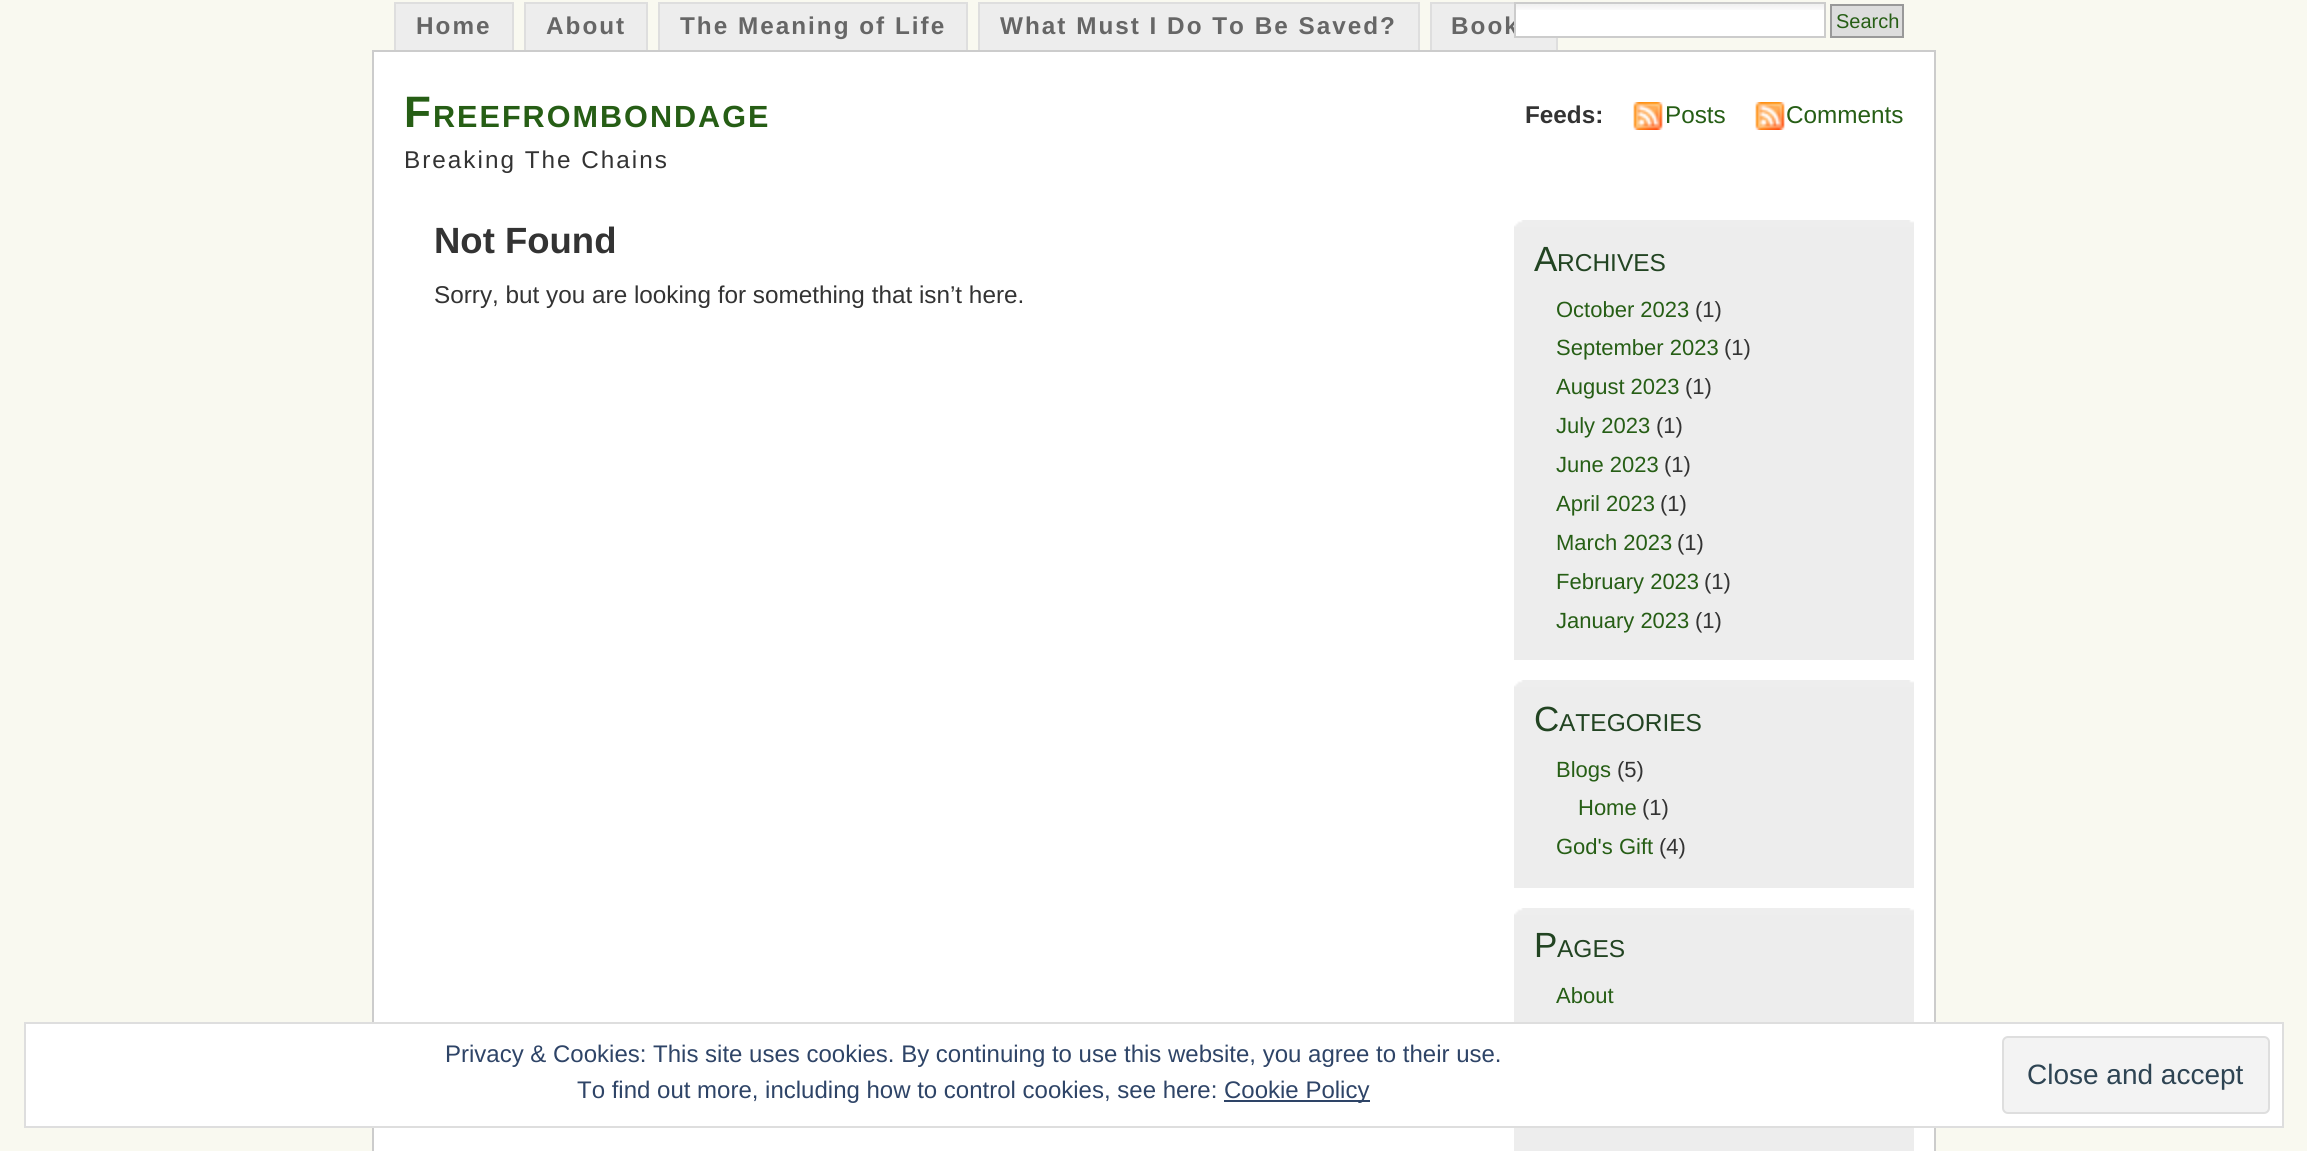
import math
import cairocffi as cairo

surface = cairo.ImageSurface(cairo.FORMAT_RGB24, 2307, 1151)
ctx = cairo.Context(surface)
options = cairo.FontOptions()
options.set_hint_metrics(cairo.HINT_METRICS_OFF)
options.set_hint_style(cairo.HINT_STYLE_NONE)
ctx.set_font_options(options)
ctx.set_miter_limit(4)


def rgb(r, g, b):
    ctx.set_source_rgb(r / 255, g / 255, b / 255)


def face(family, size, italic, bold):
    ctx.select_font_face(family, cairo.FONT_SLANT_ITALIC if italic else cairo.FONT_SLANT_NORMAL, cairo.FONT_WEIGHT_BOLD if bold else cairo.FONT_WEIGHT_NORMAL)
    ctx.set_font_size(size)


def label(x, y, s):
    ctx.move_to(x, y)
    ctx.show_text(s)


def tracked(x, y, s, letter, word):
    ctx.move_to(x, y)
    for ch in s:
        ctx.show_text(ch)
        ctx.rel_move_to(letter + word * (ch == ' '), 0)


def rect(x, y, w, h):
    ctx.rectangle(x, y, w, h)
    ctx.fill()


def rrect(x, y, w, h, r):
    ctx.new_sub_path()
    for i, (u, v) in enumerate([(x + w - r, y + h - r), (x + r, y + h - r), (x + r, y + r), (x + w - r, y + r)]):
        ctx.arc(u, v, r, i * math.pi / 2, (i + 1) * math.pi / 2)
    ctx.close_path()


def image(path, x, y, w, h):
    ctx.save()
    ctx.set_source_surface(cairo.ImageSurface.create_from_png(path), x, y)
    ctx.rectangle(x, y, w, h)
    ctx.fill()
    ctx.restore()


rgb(249, 249, 240)
ctx.paint()
rgb(237, 237, 237)
rect(396, 4, 116, 46)
rgb(222, 222, 222)
rect(394, 2, 120, 2)
rect(512, 2, 2, 48)
rect(394, 2, 2, 48)
face('Liberation Sans', 24.3, 0, 1)
rgb(102, 102, 102)
tracked(416, 34, 'Home', 2, 0)
rgb(237, 237, 237)
rect(526, 4, 120, 46)
rgb(222, 222, 222)
rect(524, 2, 124, 2)
rect(646, 2, 2, 48)
rect(524, 2, 2, 48)
rgb(102, 102, 102)
tracked(546, 34, 'About', 2, 0)
rgb(237, 237, 237)
rect(660, 4, 306, 46)
rgb(222, 222, 222)
rect(658, 2, 310, 2)
rect(966, 2, 2, 48)
rect(658, 2, 2, 48)
rgb(102, 102, 102)
tracked(680, 34, 'The Meaning of Life', 2, 0)
rgb(237, 237, 237)
rect(980, 4, 438, 46)
rgb(222, 222, 222)
rect(978, 2, 442, 2)
rect(1418, 2, 2, 48)
rect(978, 2, 2, 48)
rgb(102, 102, 102)
tracked(1000, 34, 'What Must I Do To Be Saved?', 2, 0)
rgb(237, 237, 237)
rect(1432, 4, 124, 46)
rgb(222, 222, 222)
rect(1430, 2, 84, 2)
rect(1556, 38, 2, 12)
rect(1430, 2, 2, 48)
rgb(102, 102, 102)
tracked(1451, 34, 'Book', 2, 0)
rgb(255, 255, 255)
rect(1516, 10, 308, 26)
image('image0.png', 1516, 4, 308, 6)
ctx.rectangle(1515, 3, 310, 34)
rgb(204, 204, 204)
ctx.stroke()
rgb(221, 221, 221)
ctx.rectangle(1831, 5, 72, 32)
ctx.fill_preserve()
rgb(153, 153, 153)
ctx.stroke()
face('Liberation Sans', 20, 0, 0)
rgb(38, 94, 21)
label(1836, 28, 'Search')
rgb(255, 255, 255)
ctx.rectangle(373, 51, 1562, 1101)
ctx.fill_preserve()
rgb(204, 204, 204)
ctx.stroke()
face('Liberation Sans', 44, 0, 1)
rgb(38, 94, 21)
tracked(404, 127, 'F', 2, 0)
face('Liberation Sans', 30.6, 0, 1)
tracked(433, 127, 'REEFROMBONDAGE', 2, 0)
face('Liberation Sans', 24.3, 0, 0)
rgb(51, 51, 51)
tracked(404, 168, 'Breaking The Chains', 2, 0)
face('Liberation Sans', 24.3, 0, 1)
label(1525, 123, 'Feeds:')
image('image1.png', 1633, 102, 30, 28)
face('Liberation Sans', 24.3, 0, 0)
rgb(38, 94, 21)
label(1665, 123, 'Posts')
image('image1.png', 1755, 102, 30, 28)
label(1786, 123, 'Comments')
face('Liberation Sans', 36.5, 0, 1)
rgb(51, 51, 51)
label(434, 253, 'Not Found')
face('Liberation Sans', 24.3, 0, 0)
label(434, 303, 'Sorry, but you are looking for something that isn’t here.')
rgb(237, 237, 237)
rect(1514, 227, 400, 433)
image('image2.png', 1514, 220, 400, 7)
face('Liberation Sans', 35, 0, 0)
rgb(34, 68, 34)
label(1534, 271, 'A')
face('Liberation Sans', 24.5, 0, 0)
label(1557, 271, 'RCHIVES')
face('Liberation Sans', 22, 0, 0)
rgb(38, 94, 21)
label(1556, 317, 'October 2023')
rgb(51, 51, 51)
label(1695, 317, '(1)')
rgb(38, 94, 21)
label(1556, 355, 'September 2023')
rgb(51, 51, 51)
label(1724, 355, '(1)')
rgb(38, 94, 21)
label(1556, 394, 'August 2023')
rgb(51, 51, 51)
label(1685, 394, '(1)')
rgb(38, 94, 21)
label(1556, 433, 'July 2023')
rgb(51, 51, 51)
label(1656, 433, '(1)')
rgb(38, 94, 21)
label(1556, 472, 'June 2023')
rgb(51, 51, 51)
label(1664, 472, '(1)')
rgb(38, 94, 21)
label(1556, 511, 'April 2023')
rgb(51, 51, 51)
label(1660, 511, '(1)')
rgb(38, 94, 21)
label(1556, 550, 'March 2023')
rgb(51, 51, 51)
label(1677, 550, '(1)')
rgb(38, 94, 21)
label(1556, 589, 'February 2023')
rgb(51, 51, 51)
label(1704, 589, '(1)')
rgb(38, 94, 21)
label(1556, 628, 'January 2023')
rgb(51, 51, 51)
label(1695, 628, '(1)')
rgb(237, 237, 237)
rect(1514, 687, 400, 201)
image('image2.png', 1514, 680, 400, 7)
face('Liberation Sans', 35, 0, 0)
rgb(34, 68, 34)
label(1534, 731, 'C')
face('Liberation Sans', 24.5, 0, 0)
label(1559, 731, 'ATEGORIES')
face('Liberation Sans', 22, 0, 0)
rgb(38, 94, 21)
label(1556, 777, 'Blogs')
rgb(51, 51, 51)
label(1617, 777, '(5)')
rgb(38, 94, 21)
label(1578, 815, 'Home')
rgb(51, 51, 51)
label(1642, 815, '(1)')
rgb(38, 94, 21)
label(1556, 854, 'God\'s Gift')
rgb(51, 51, 51)
label(1659, 854, '(4)')
rgb(237, 237, 237)
rect(1514, 915, 400, 236)
image('image2.png', 1514, 908, 400, 7)
face('Liberation Sans', 35, 0, 0)
rgb(34, 68, 34)
label(1534, 957, 'P')
face('Liberation Sans', 24.5, 0, 0)
label(1557, 957, 'AGES')
face('Liberation Sans', 22, 0, 0)
rgb(38, 94, 21)
label(1556, 1003, 'About')
rgb(255, 255, 255)
ctx.rectangle(25, 1023, 2258, 104)
ctx.fill_preserve()
rgb(222, 222, 222)
ctx.stroke()
face('Liberation Sans', 24, 0, 0)
rgb(46, 68, 103)
label(445, 1062, 'Privacy & Cookies: This site uses cookies. By continuing to use this website, you agree to their use.')
label(577, 1098, 'To find out more, including how to control cookies, see here:')
rect(1224, 1100, 146, 2)
label(1224, 1098, 'Cookie Policy')
rgb(243, 243, 243)
rrect(2003, 1037, 266, 76, 5)
ctx.fill_preserve()
rgb(222, 222, 222)
ctx.stroke()
face('Liberation Sans', 28, 0, 0)
rgb(46, 68, 83)
label(2027, 1084, 'Close and accept')
surface.write_to_png('render.png')
